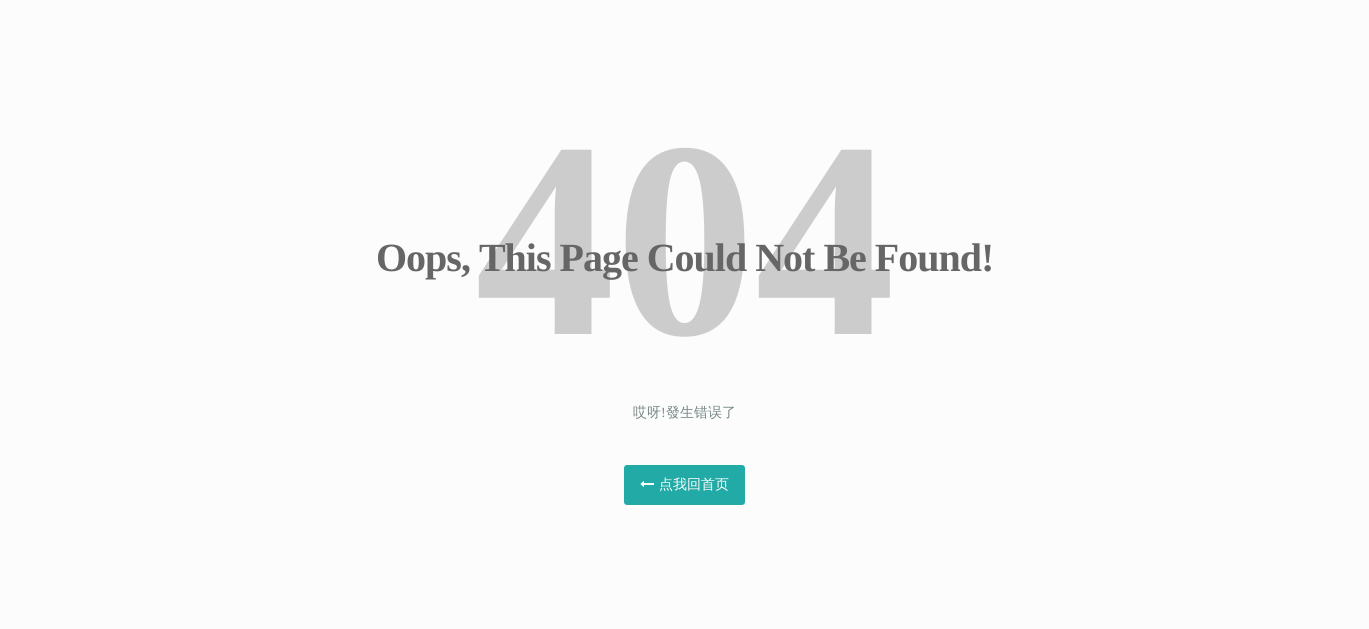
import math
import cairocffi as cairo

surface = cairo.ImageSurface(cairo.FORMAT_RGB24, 1369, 629)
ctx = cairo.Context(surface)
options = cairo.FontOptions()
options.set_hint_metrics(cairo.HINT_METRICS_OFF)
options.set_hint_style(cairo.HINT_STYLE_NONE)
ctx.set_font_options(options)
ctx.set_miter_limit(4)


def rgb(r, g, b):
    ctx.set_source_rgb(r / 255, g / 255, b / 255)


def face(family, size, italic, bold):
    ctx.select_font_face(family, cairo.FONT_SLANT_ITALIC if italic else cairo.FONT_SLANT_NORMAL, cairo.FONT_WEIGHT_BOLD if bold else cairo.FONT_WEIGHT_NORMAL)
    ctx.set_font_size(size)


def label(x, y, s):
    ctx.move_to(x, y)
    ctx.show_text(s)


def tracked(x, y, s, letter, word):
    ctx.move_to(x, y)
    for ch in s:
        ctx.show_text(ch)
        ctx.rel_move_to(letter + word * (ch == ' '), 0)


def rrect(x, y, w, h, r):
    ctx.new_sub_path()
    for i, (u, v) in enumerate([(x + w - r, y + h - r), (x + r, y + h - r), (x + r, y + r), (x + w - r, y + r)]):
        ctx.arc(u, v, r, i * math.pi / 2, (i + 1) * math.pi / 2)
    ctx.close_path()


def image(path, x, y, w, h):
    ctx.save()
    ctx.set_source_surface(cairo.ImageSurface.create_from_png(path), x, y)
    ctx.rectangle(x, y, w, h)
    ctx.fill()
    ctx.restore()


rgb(252, 252, 252)
ctx.paint()
face('Liberation Serif', 280, 0, 1)
rgb(204, 204, 204)
label(475, 334, '404')
face('Liberation Serif', 40, 0, 1)
rgb(102, 102, 102)
tracked(376, 271, 'Oops, This Page Could Not Be Found!', -1, 0)
face('WenQuanYi Zen Hei Medium', 14, 0, 0)
rgb(119, 136, 136)
label(633, 417, '哎呀')
face('Liberation Serif', 14, 0, 0)
label(661, 417, '!')
face('WenQuanYi Zen Hei Medium', 14, 0, 0)
label(666, 417, '發生错误了')
rgb(34, 171, 166)
rrect(624, 465, 121, 40, 3)
ctx.fill()
image('image0.png', 640, 481, 14, 6)
rgb(252, 252, 252)
label(659, 489, '点我回首页')
surface.write_to_png('render.png')
